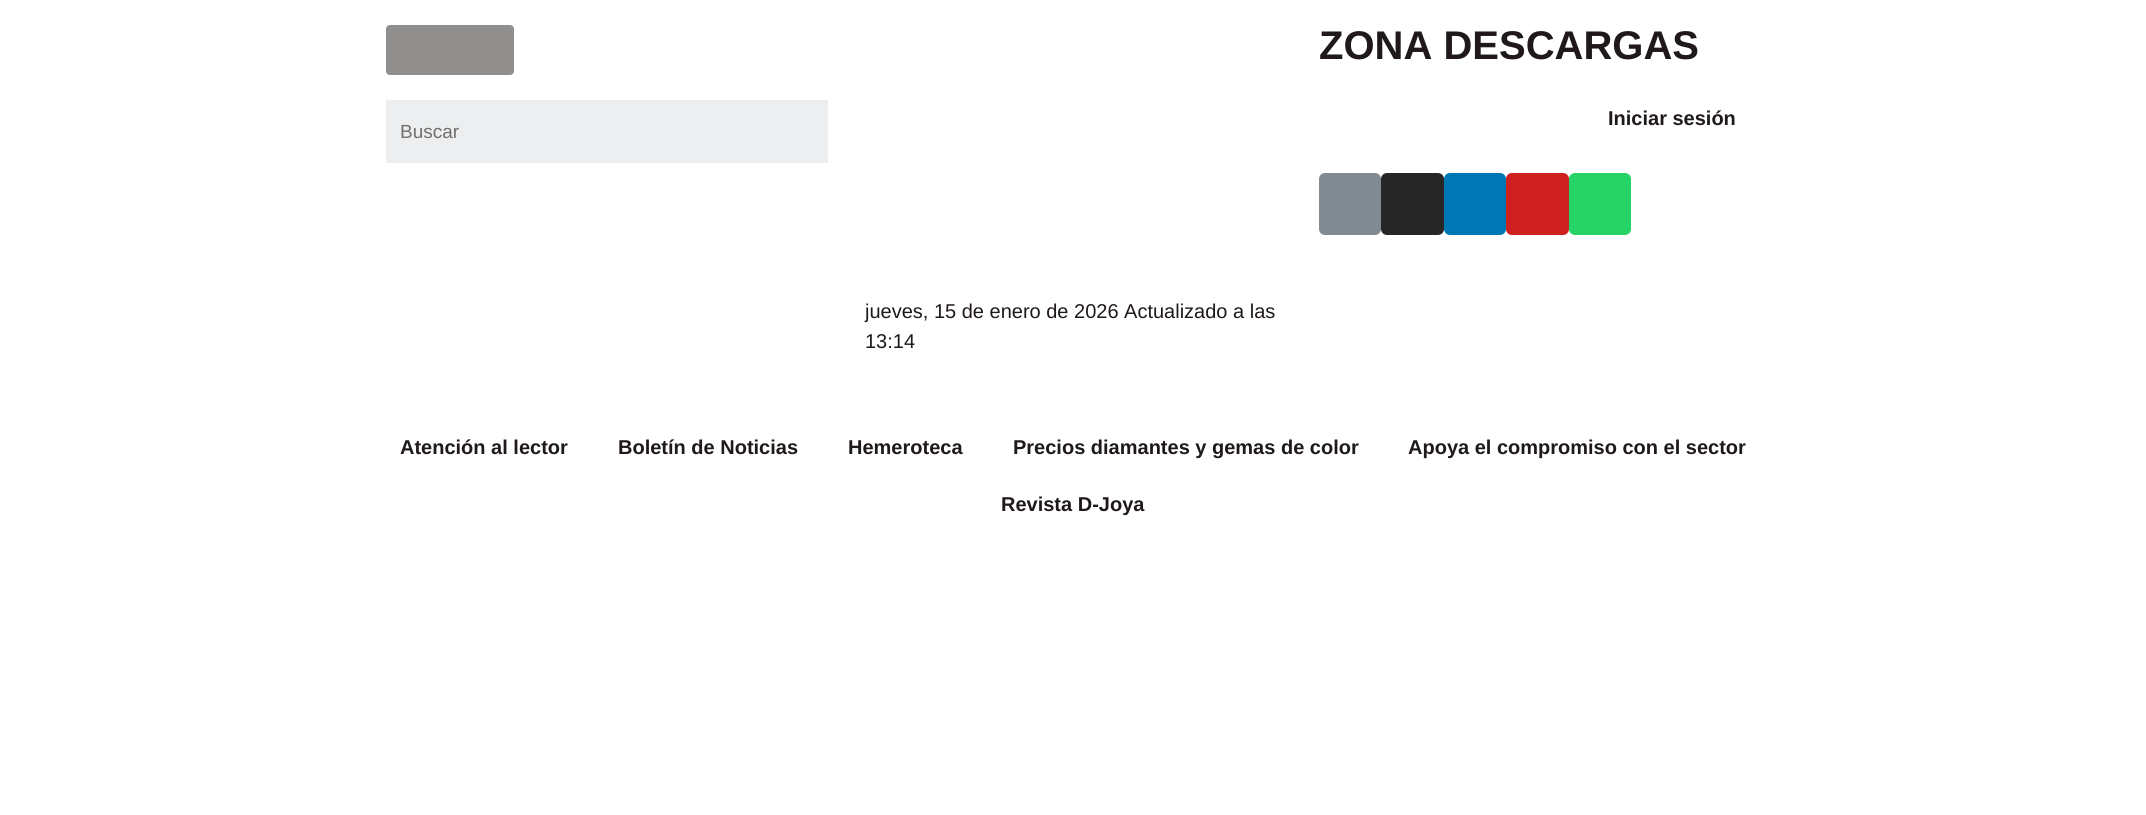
import math
import cairocffi as cairo

surface = cairo.ImageSurface(cairo.FORMAT_RGB24, 2146, 815)
ctx = cairo.Context(surface)
options = cairo.FontOptions()
options.set_hint_metrics(cairo.HINT_METRICS_OFF)
options.set_hint_style(cairo.HINT_STYLE_NONE)
ctx.set_font_options(options)
ctx.set_miter_limit(4)


def rgb(r, g, b):
    ctx.set_source_rgb(r / 255, g / 255, b / 255)


def face(family, size, italic, bold):
    ctx.select_font_face(family, cairo.FONT_SLANT_ITALIC if italic else cairo.FONT_SLANT_NORMAL, cairo.FONT_WEIGHT_BOLD if bold else cairo.FONT_WEIGHT_NORMAL)
    ctx.set_font_size(size)


def label(x, y, s):
    ctx.move_to(x, y)
    ctx.show_text(s)


def rect(x, y, w, h):
    ctx.rectangle(x, y, w, h)
    ctx.fill()


def rrect(x, y, w, h, r):
    ctx.new_sub_path()
    for i, (u, v) in enumerate([(x + w - r, y + h - r), (x + r, y + h - r), (x + r, y + r), (x + w - r, y + r)]):
        ctx.arc(u, v, r, i * math.pi / 2, (i + 1) * math.pi / 2)
    ctx.close_path()


rgb(255, 255, 255)
ctx.paint()
face('Liberation Sans', 40, 0, 1)
rgb(31, 25, 25)
label(1319, 59, 'ZONA DESCARGAS')
face('Liberation Sans', 20, 0, 1)
label(1608, 125, 'Iniciar sesión')
rgb(129, 138, 145)
rrect(1319, 173, 62, 62, 6)
ctx.fill()
rgb(38, 38, 38)
rrect(1381, 173, 63, 62, 6)
ctx.fill()
rgb(0, 119, 181)
rrect(1444, 173, 62, 62, 6)
ctx.fill()
rgb(205, 32, 31)
rrect(1506, 173, 63, 62, 6)
ctx.fill()
rgb(37, 211, 102)
rrect(1569, 173, 62, 62, 6)
ctx.fill()
rgb(145, 142, 142)
rrect(386, 25, 128, 50, 4)
ctx.fill()
rgb(236, 238, 239)
rect(386, 100, 442, 63)
face('Liberation Sans', 19, 0, 0)
rgb(113, 110, 111)
label(400, 138, 'Buscar')
face('Liberation Sans', 20, 0, 0)
rgb(31, 25, 25)
label(865, 318, 'jueves, 15 de enero de 2026 Actualizado a las')
label(865, 348, '13:14')
face('Liberation Sans', 20, 0, 1)
label(400, 454, 'Atención al lector')
label(618, 454, 'Boletín de Noticias')
label(848, 454, 'Hemeroteca')
label(1013, 454, 'Precios diamantes y gemas de color')
label(1408, 454, 'Apoya el compromiso con el sector')
label(1001, 511, 'Revista D-Joya')
surface.write_to_png('render.png')
